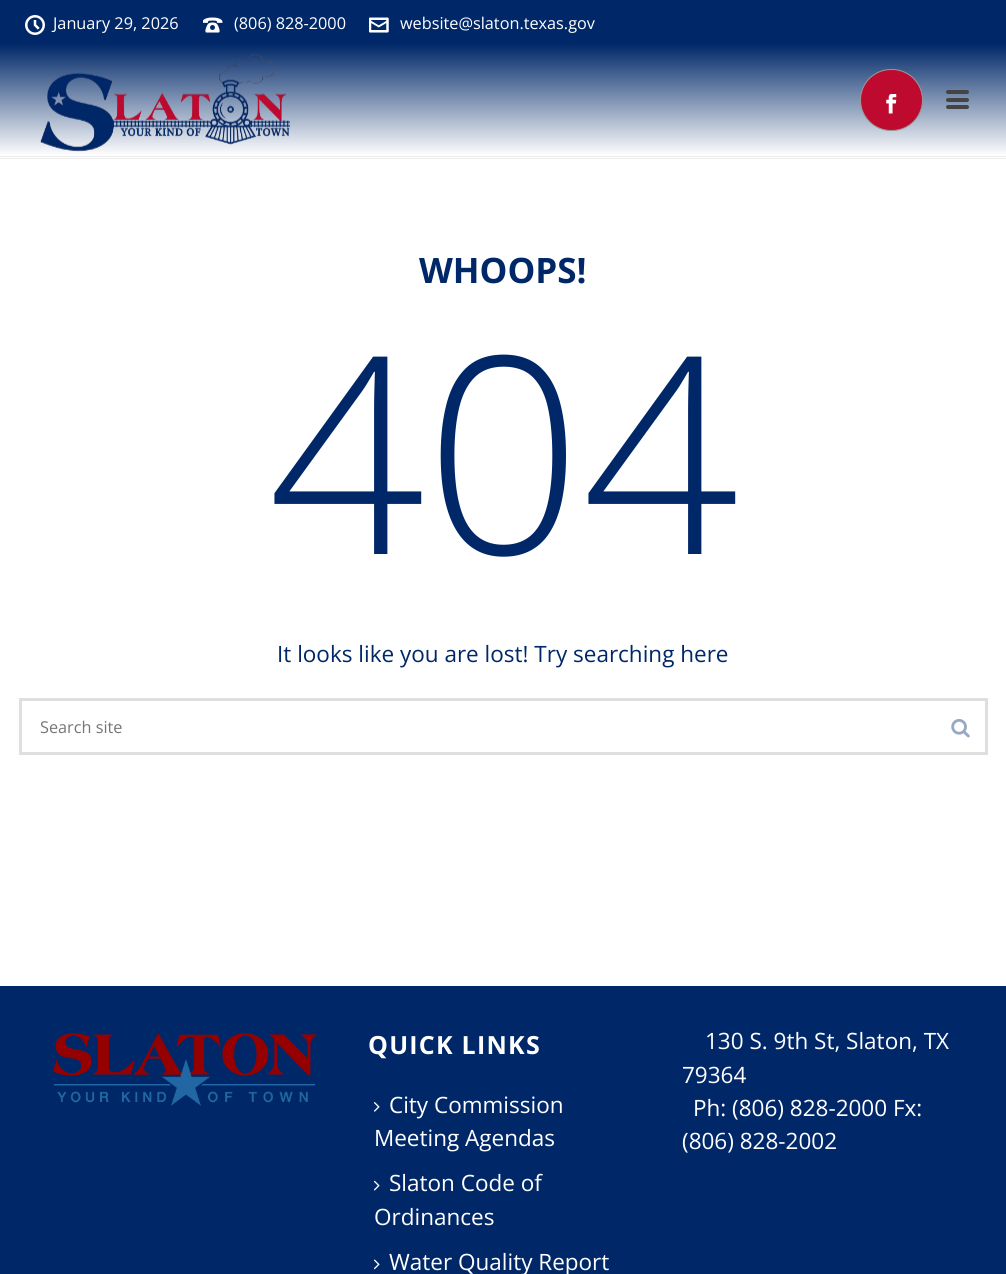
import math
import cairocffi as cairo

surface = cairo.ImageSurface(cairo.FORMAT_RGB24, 1006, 1274)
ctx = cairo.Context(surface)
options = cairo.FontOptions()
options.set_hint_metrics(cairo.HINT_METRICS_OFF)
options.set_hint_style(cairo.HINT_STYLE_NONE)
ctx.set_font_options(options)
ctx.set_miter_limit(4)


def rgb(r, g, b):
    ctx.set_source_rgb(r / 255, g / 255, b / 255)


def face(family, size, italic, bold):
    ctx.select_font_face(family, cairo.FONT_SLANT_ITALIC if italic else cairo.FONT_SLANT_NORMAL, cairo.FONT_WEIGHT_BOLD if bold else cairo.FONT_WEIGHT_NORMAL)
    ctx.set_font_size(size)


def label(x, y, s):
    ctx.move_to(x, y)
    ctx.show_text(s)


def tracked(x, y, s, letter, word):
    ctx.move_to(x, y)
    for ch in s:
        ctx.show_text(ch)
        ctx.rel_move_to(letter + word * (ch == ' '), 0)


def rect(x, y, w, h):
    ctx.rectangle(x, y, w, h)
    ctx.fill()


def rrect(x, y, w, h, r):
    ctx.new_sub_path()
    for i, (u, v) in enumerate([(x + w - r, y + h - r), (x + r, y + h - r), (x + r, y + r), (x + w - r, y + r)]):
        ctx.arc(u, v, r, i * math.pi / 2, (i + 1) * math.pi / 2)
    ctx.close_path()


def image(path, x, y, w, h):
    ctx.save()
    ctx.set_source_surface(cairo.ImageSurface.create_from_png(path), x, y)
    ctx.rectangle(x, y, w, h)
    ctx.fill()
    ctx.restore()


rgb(255, 255, 255)
ctx.paint()
rgb(237, 237, 237)
rect(0, 158, 1006, 1)
rgb(0, 40, 104)
rect(0, 0, 1006, 44)
image('image0.png', 25, 15, 20, 20)
face('Open Sans', 16.25, 0, 0)
rgb(255, 255, 255)
label(53, 29, 'January 29, 2026')
image('image1.png', 203, 17, 20, 16)
label(234, 29, '(806) 828-2000')
image('image2.png', 369, 17, 20, 16)
label(400, 29, 'website@slaton.texas.gov')
rgb(237, 237, 237)
rect(0, 156, 1006, 1)
gradient = cairo.LinearGradient(503, 44, 503, 156)
gradient.add_color_stop_rgba(0, 0, 0.157, 0.408, 1)
gradient.add_color_stop_rgba(1, 1, 1, 1, 1)
ctx.set_source(gradient)
rect(0, 44, 1006, 111)
image('image3.png', 40, 53, 250, 99)
rgb(68, 68, 68)
rrect(946, 90, 23, 4, 2)
ctx.fill()
rrect(946, 98, 23, 4, 2)
ctx.fill()
rrect(946, 105, 23, 4, 2)
ctx.fill()
rgb(191, 10, 48)
rrect(860.5, 69.5, 62, 61, 30.5)
ctx.fill_preserve()
rgb(153, 153, 153)
ctx.set_line_width(1)
ctx.stroke()
image('image4.png', 886, 94, 11, 20)
face('Open Sans', 35, 0, 1)
rgb(0, 40, 104)
label(419, 283, 'WHOOPS!')
face('Open Sans Light', 275, 0, 0)
label(268, 554, '404')
face('Open Sans', 22.5, 0, 0)
label(277, 662, 'It looks like you are lost! Try searching here')
ctx.rectangle(20.5, 699.5, 966, 54)
rgb(223, 223, 223)
ctx.set_line_width(3)
ctx.stroke()
face('Open Sans', 16.25, 0, 0)
rgb(117, 117, 117)
label(40, 733, 'Search site')
image('image5.png', 951, 719, 19, 19)
rgb(0, 40, 104)
rect(0, 986, 1006, 288)
image('image6.png', 53, 1033, 264, 73)
face('Open Sans', 25, 0, 1)
rgb(255, 255, 255)
tracked(368, 1054, 'QUICK LINKS', 1.25, 0)
image('image7.png', 374, 1102, 6, 10)
face('Open Sans', 22.5, 0, 0)
label(389, 1113, 'City Commission')
label(374, 1146, 'Meeting Agendas')
image('image8.png', 374, 1180, 6, 11)
label(389, 1191, 'Slaton Code of')
label(374, 1225, 'Ordinances')
image('image9.png', 374, 1259, 6, 11)
label(389, 1270, 'Water Quality Report')
label(705, 1049, '130 S. 9th St, Slaton, TX')
label(682, 1083, '79364')
label(693, 1116, 'Ph: (806) 828-2000 Fx:')
label(682, 1149, '(806) 828-2002')
surface.write_to_png('render.png')
